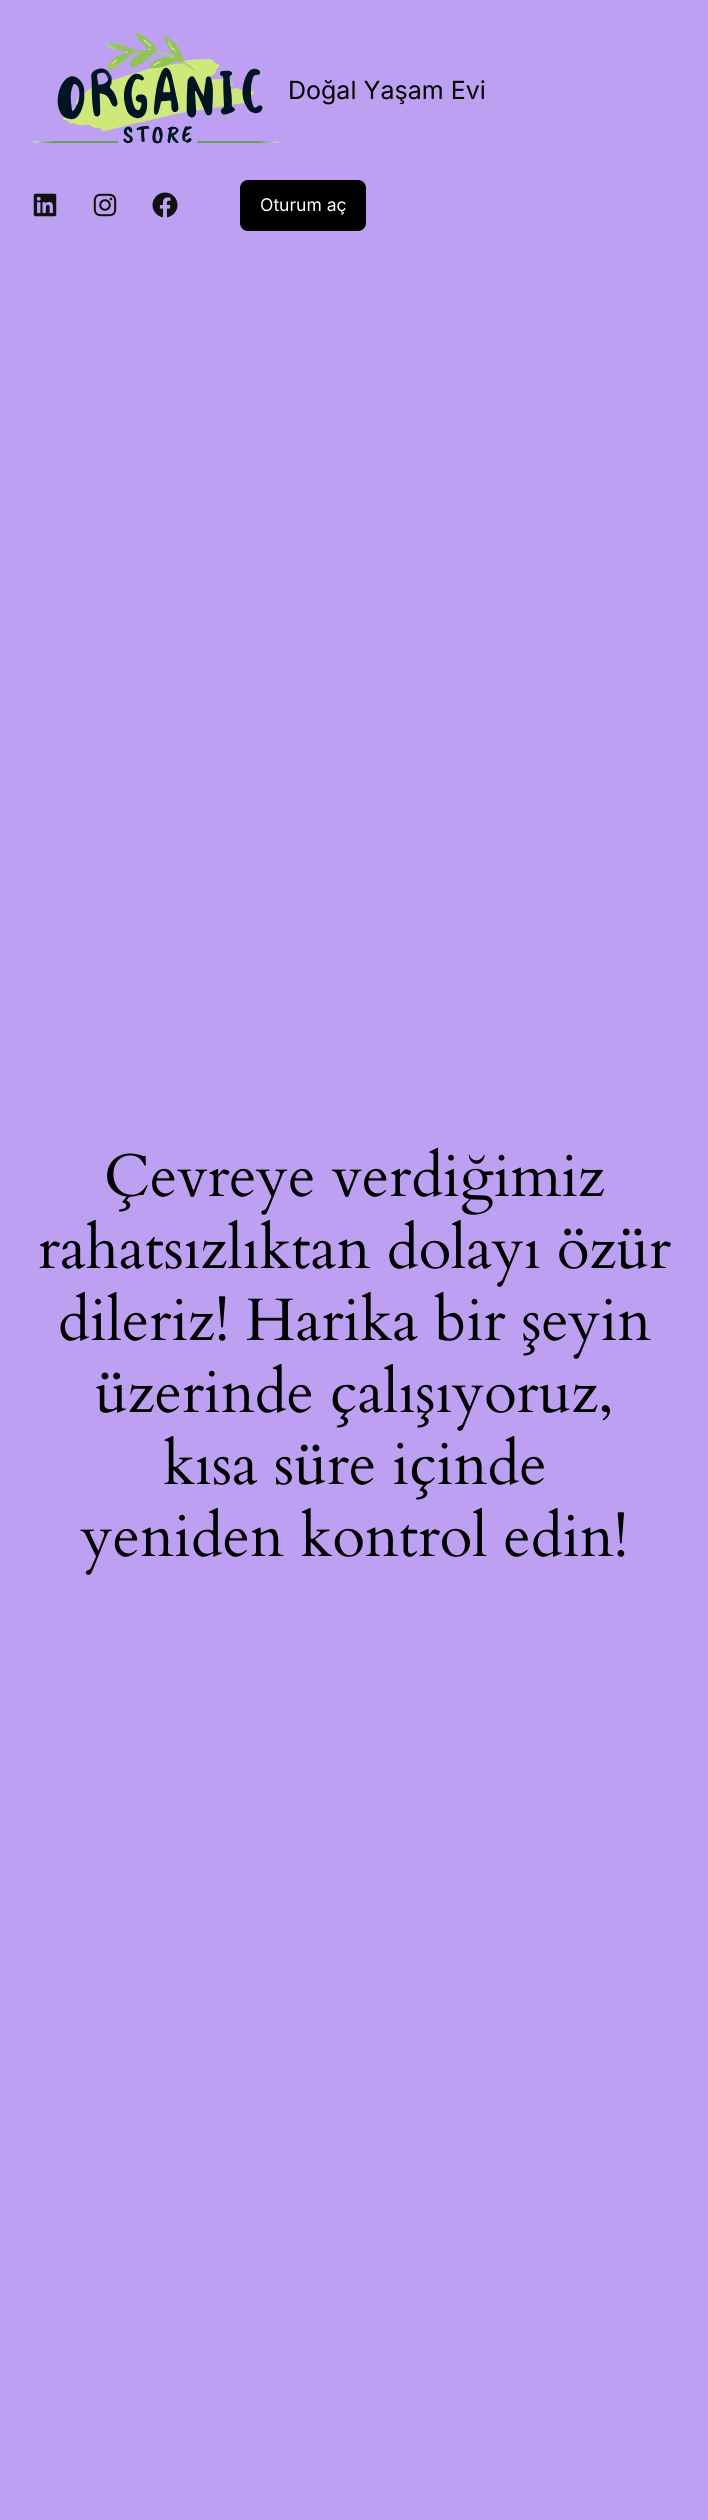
import math
import cairocffi as cairo

surface = cairo.ImageSurface(cairo.FORMAT_RGB24, 708, 2520)
ctx = cairo.Context(surface)
options = cairo.FontOptions()
options.set_hint_metrics(cairo.HINT_METRICS_OFF)
options.set_hint_style(cairo.HINT_STYLE_NONE)
ctx.set_font_options(options)
ctx.set_miter_limit(4)


def rgb(r, g, b):
    ctx.set_source_rgb(r / 255, g / 255, b / 255)


def face(family, size, italic, bold):
    ctx.select_font_face(family, cairo.FONT_SLANT_ITALIC if italic else cairo.FONT_SLANT_NORMAL, cairo.FONT_WEIGHT_BOLD if bold else cairo.FONT_WEIGHT_NORMAL)
    ctx.set_font_size(size)


def label(x, y, s):
    ctx.move_to(x, y)
    ctx.show_text(s)


def rrect(x, y, w, h, r):
    ctx.new_sub_path()
    for i, (u, v) in enumerate([(x + w - r, y + h - r), (x + r, y + h - r), (x + r, y + r), (x + w - r, y + r)]):
        ctx.arc(u, v, r, i * math.pi / 2, (i + 1) * math.pi / 2)
    ctx.close_path()


def image(path, x, y, w, h):
    ctx.save()
    ctx.set_source_surface(cairo.ImageSurface.create_from_png(path), x, y)
    ctx.rectangle(x, y, w, h)
    ctx.fill()
    ctx.restore()


rgb(190, 160, 242)
ctx.paint()
image('image0.png', 30, 33, 250, 111)
face('Inter', 25, 0, 0)
rgb(0, 0, 0)
label(288, 99, 'Doğal Yaşam Evi')
image('image1.png', 33, 193, 24, 24)
image('image2.png', 93, 193, 24, 24)
image('image3.png', 152, 192, 26, 26)
rrect(240, 180, 126, 51, 8)
ctx.fill()
face('Inter', 17.5, 0, 0)
rgb(255, 255, 255)
label(260, 211, 'Oturum aç')
face('Cardo', 60, 0, 0)
rgb(0, 0, 0)
label(104, 1196, 'Çevreye verdiğimiz')
label(38, 1268, 'rahatsızlıktan dolayı özür')
label(58, 1340, 'dileriz! Harika bir şeyin')
label(95, 1412, 'üzerinde çalışıyoruz,')
label(163, 1484, 'kısa süre içinde')
label(81, 1556, 'yeniden kontrol edin!')
surface.write_to_png('render.png')
